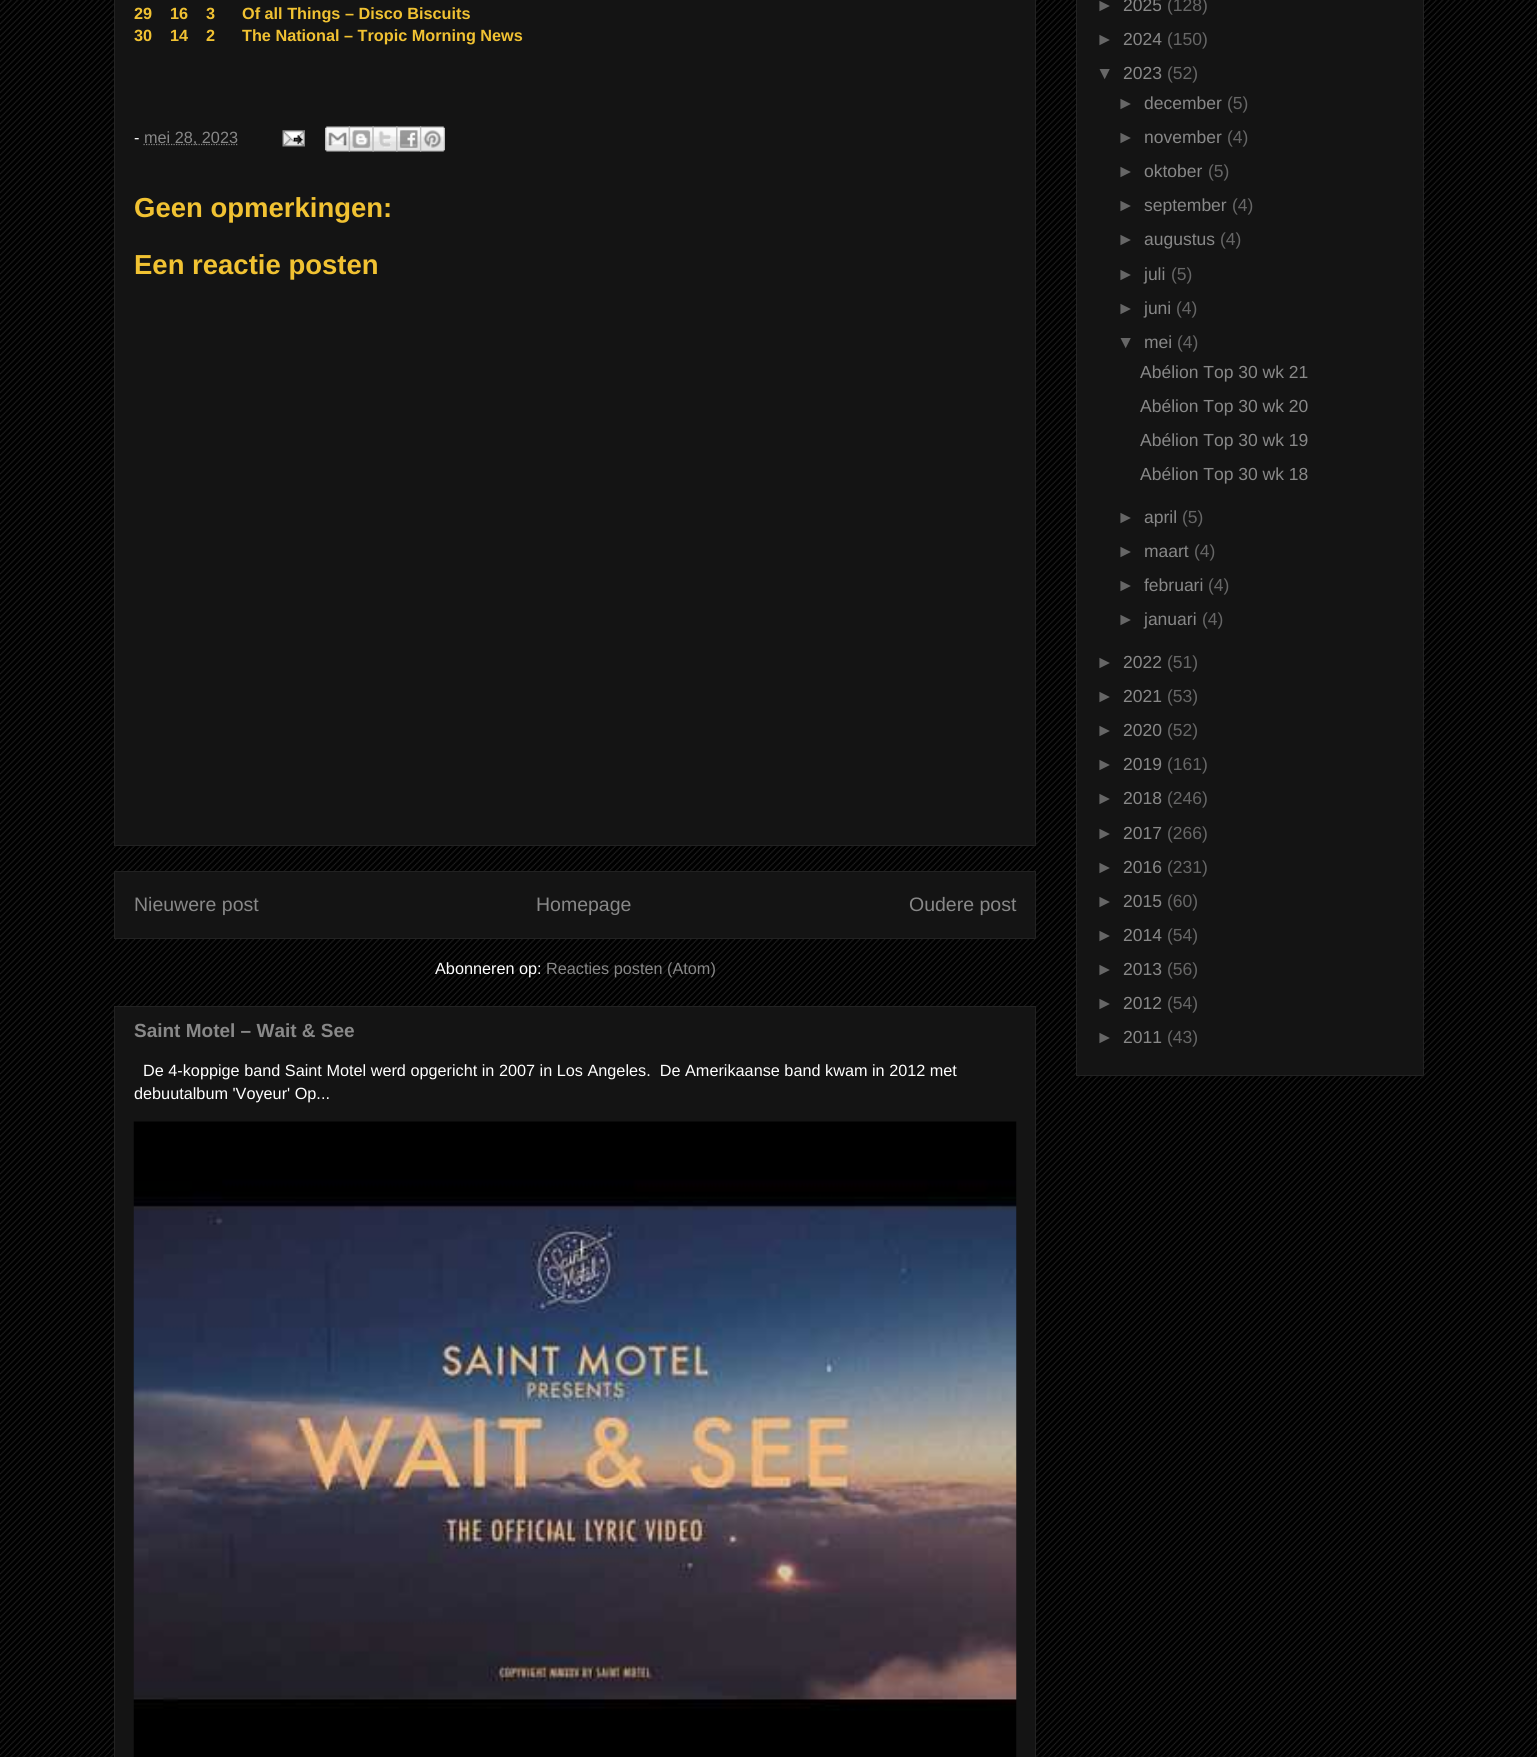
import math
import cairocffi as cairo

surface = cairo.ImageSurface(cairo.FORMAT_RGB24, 1537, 1757)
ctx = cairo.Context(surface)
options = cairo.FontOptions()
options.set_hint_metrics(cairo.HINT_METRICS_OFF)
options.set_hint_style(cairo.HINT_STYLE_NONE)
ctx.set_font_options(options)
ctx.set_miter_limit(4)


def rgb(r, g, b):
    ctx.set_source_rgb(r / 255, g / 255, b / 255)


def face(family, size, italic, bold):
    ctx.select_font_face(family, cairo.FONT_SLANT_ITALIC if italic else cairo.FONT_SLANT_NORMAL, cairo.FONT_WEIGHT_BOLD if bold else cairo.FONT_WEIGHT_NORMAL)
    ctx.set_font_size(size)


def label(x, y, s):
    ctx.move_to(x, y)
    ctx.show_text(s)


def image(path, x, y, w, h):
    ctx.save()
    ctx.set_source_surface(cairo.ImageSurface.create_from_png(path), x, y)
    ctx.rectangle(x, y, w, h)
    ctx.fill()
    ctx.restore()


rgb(0, 0, 0)
ctx.paint()
image('image0.png', 0, 0, 1537, 1757)
rgb(20, 20, 20)
ctx.rectangle(114.5, -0.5, 921, 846)
ctx.fill_preserve()
rgb(34, 34, 34)
ctx.set_line_width(1)
ctx.stroke()
face('Liberation Sans', 16.25, 0, 1)
rgb(241, 194, 50)
label(134, 19, '29')
label(170, 19, '16')
label(206, 19, '3')
label(242, 19, 'Of all Things – Disco Biscuits')
label(134, 41, '30')
label(170, 41, '14')
label(206, 41, '2')
label(242, 41, 'The National – Tropic Morning News')
face('Liberation Sans', 16.25, 0, 0)
rgb(255, 255, 255)
label(134, 143, '-')
ctx.new_path()
ctx.move_to(143.5, 144.5)
ctx.line_to(237.5, 144.5)
rgb(136, 136, 136)
ctx.set_line_width(1.2)
ctx.set_dash([1.25, 1.25])
ctx.stroke()
label(144, 143, 'mei 28, 2023')
image('image1.png', 282, 130, 23, 17)
image('image2.png', 325, 126, 25, 26)
image('image3.png', 348, 126, 26, 26)
image('image4.png', 372, 126, 26, 26)
image('image5.png', 396, 126, 26, 26)
image('image6.png', 420, 126, 25, 26)
face('Liberation Sans', 27.5, 0, 1)
rgb(241, 194, 50)
label(134, 217, 'Geen opmerkingen:')
label(134, 274, 'Een reactie posten')
rgb(20, 20, 20)
ctx.rectangle(114.5, 871.5, 921, 67)
ctx.fill_preserve()
rgb(34, 34, 34)
ctx.set_line_width(1)
ctx.set_dash([])
ctx.stroke()
face('Liberation Sans', 19.5, 0, 0)
rgb(136, 136, 136)
label(134, 911, 'Nieuwere post')
label(536, 911, 'Homepage')
label(909, 911, 'Oudere post')
face('Liberation Sans', 16.25, 0, 0)
rgb(255, 255, 255)
label(435, 974, 'Abonneren op:')
rgb(136, 136, 136)
label(546, 974, 'Reacties posten (Atom)')
rgb(20, 20, 20)
ctx.rectangle(114.5, 1006.5, 921, 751)
ctx.fill_preserve()
rgb(34, 34, 34)
ctx.stroke()
face('Liberation Sans', 19, 0, 1)
rgb(136, 136, 136)
label(134, 1037, 'Saint Motel – Wait & See')
face('Liberation Sans', 16.25, 0, 0)
rgb(255, 255, 255)
label(143, 1076, 'De 4-koppige band Saint Motel werd opgericht in 2007 in Los Angeles.  De Amerikaanse band kwam in 2012 met')
label(134, 1099, 'debuutalbum \'Voyeur\' Op...')
image('image7.png', 133, 1121, 884, 636)
rgb(20, 20, 20)
ctx.rectangle(1076.5, -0.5, 347, 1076)
ctx.fill_preserve()
rgb(34, 34, 34)
ctx.stroke()
face('Liberation Sans', 17.5, 0, 0)
rgb(102, 102, 102)
label(1096, 11, '►')
rgb(136, 136, 136)
label(1123, 11, '2025')
rgb(102, 102, 102)
label(1167, 11, '(128)')
label(1096, 45, '►')
rgb(136, 136, 136)
label(1123, 45, '2024')
rgb(102, 102, 102)
label(1167, 45, '(150)')
label(1096, 79, '▼')
rgb(136, 136, 136)
label(1123, 79, '2023')
rgb(102, 102, 102)
label(1167, 79, '(52)')
label(1117, 109, '►')
rgb(136, 136, 136)
label(1144, 109, 'december')
rgb(102, 102, 102)
label(1227, 109, '(5)')
label(1117, 143, '►')
rgb(136, 136, 136)
label(1144, 143, 'november')
rgb(102, 102, 102)
label(1227, 143, '(4)')
label(1117, 177, '►')
rgb(136, 136, 136)
label(1144, 177, 'oktober')
rgb(102, 102, 102)
label(1208, 177, '(5)')
label(1117, 211, '►')
rgb(136, 136, 136)
label(1144, 211, 'september')
rgb(102, 102, 102)
label(1232, 211, '(4)')
label(1117, 245, '►')
rgb(136, 136, 136)
label(1144, 245, 'augustus')
rgb(102, 102, 102)
label(1220, 245, '(4)')
label(1117, 280, '►')
rgb(136, 136, 136)
label(1144, 280, 'juli')
rgb(102, 102, 102)
label(1171, 280, '(5)')
label(1117, 314, '►')
rgb(136, 136, 136)
label(1144, 314, 'juni')
rgb(102, 102, 102)
label(1176, 314, '(4)')
label(1117, 348, '▼')
rgb(136, 136, 136)
label(1144, 348, 'mei')
rgb(102, 102, 102)
label(1177, 348, '(4)')
rgb(136, 136, 136)
label(1140, 378, 'Abélion Top 30 wk 21')
label(1140, 412, 'Abélion Top 30 wk 20')
label(1140, 446, 'Abélion Top 30 wk 19')
label(1140, 480, 'Abélion Top 30 wk 18')
rgb(102, 102, 102)
label(1117, 523, '►')
rgb(136, 136, 136)
label(1144, 523, 'april')
rgb(102, 102, 102)
label(1182, 523, '(5)')
label(1117, 557, '►')
rgb(136, 136, 136)
label(1144, 557, 'maart')
rgb(102, 102, 102)
label(1194, 557, '(4)')
label(1117, 591, '►')
rgb(136, 136, 136)
label(1144, 591, 'februari')
rgb(102, 102, 102)
label(1208, 591, '(4)')
label(1117, 625, '►')
rgb(136, 136, 136)
label(1144, 625, 'januari')
rgb(102, 102, 102)
label(1202, 625, '(4)')
label(1096, 668, '►')
rgb(136, 136, 136)
label(1123, 668, '2022')
rgb(102, 102, 102)
label(1167, 668, '(51)')
label(1096, 702, '►')
rgb(136, 136, 136)
label(1123, 702, '2021')
rgb(102, 102, 102)
label(1167, 702, '(53)')
label(1096, 736, '►')
rgb(136, 136, 136)
label(1123, 736, '2020')
rgb(102, 102, 102)
label(1167, 736, '(52)')
label(1096, 770, '►')
rgb(136, 136, 136)
label(1123, 770, '2019')
rgb(102, 102, 102)
label(1167, 770, '(161)')
label(1096, 804, '►')
rgb(136, 136, 136)
label(1123, 804, '2018')
rgb(102, 102, 102)
label(1167, 804, '(246)')
label(1096, 839, '►')
rgb(136, 136, 136)
label(1123, 839, '2017')
rgb(102, 102, 102)
label(1167, 839, '(266)')
label(1096, 873, '►')
rgb(136, 136, 136)
label(1123, 873, '2016')
rgb(102, 102, 102)
label(1167, 873, '(231)')
label(1096, 907, '►')
rgb(136, 136, 136)
label(1123, 907, '2015')
rgb(102, 102, 102)
label(1167, 907, '(60)')
label(1096, 941, '►')
rgb(136, 136, 136)
label(1123, 941, '2014')
rgb(102, 102, 102)
label(1167, 941, '(54)')
label(1096, 975, '►')
rgb(136, 136, 136)
label(1123, 975, '2013')
rgb(102, 102, 102)
label(1167, 975, '(56)')
label(1096, 1009, '►')
rgb(136, 136, 136)
label(1123, 1009, '2012')
rgb(102, 102, 102)
label(1167, 1009, '(54)')
label(1096, 1043, '►')
rgb(136, 136, 136)
label(1123, 1043, '2011')
rgb(102, 102, 102)
label(1167, 1043, '(43)')
surface.write_to_png('render.png')
